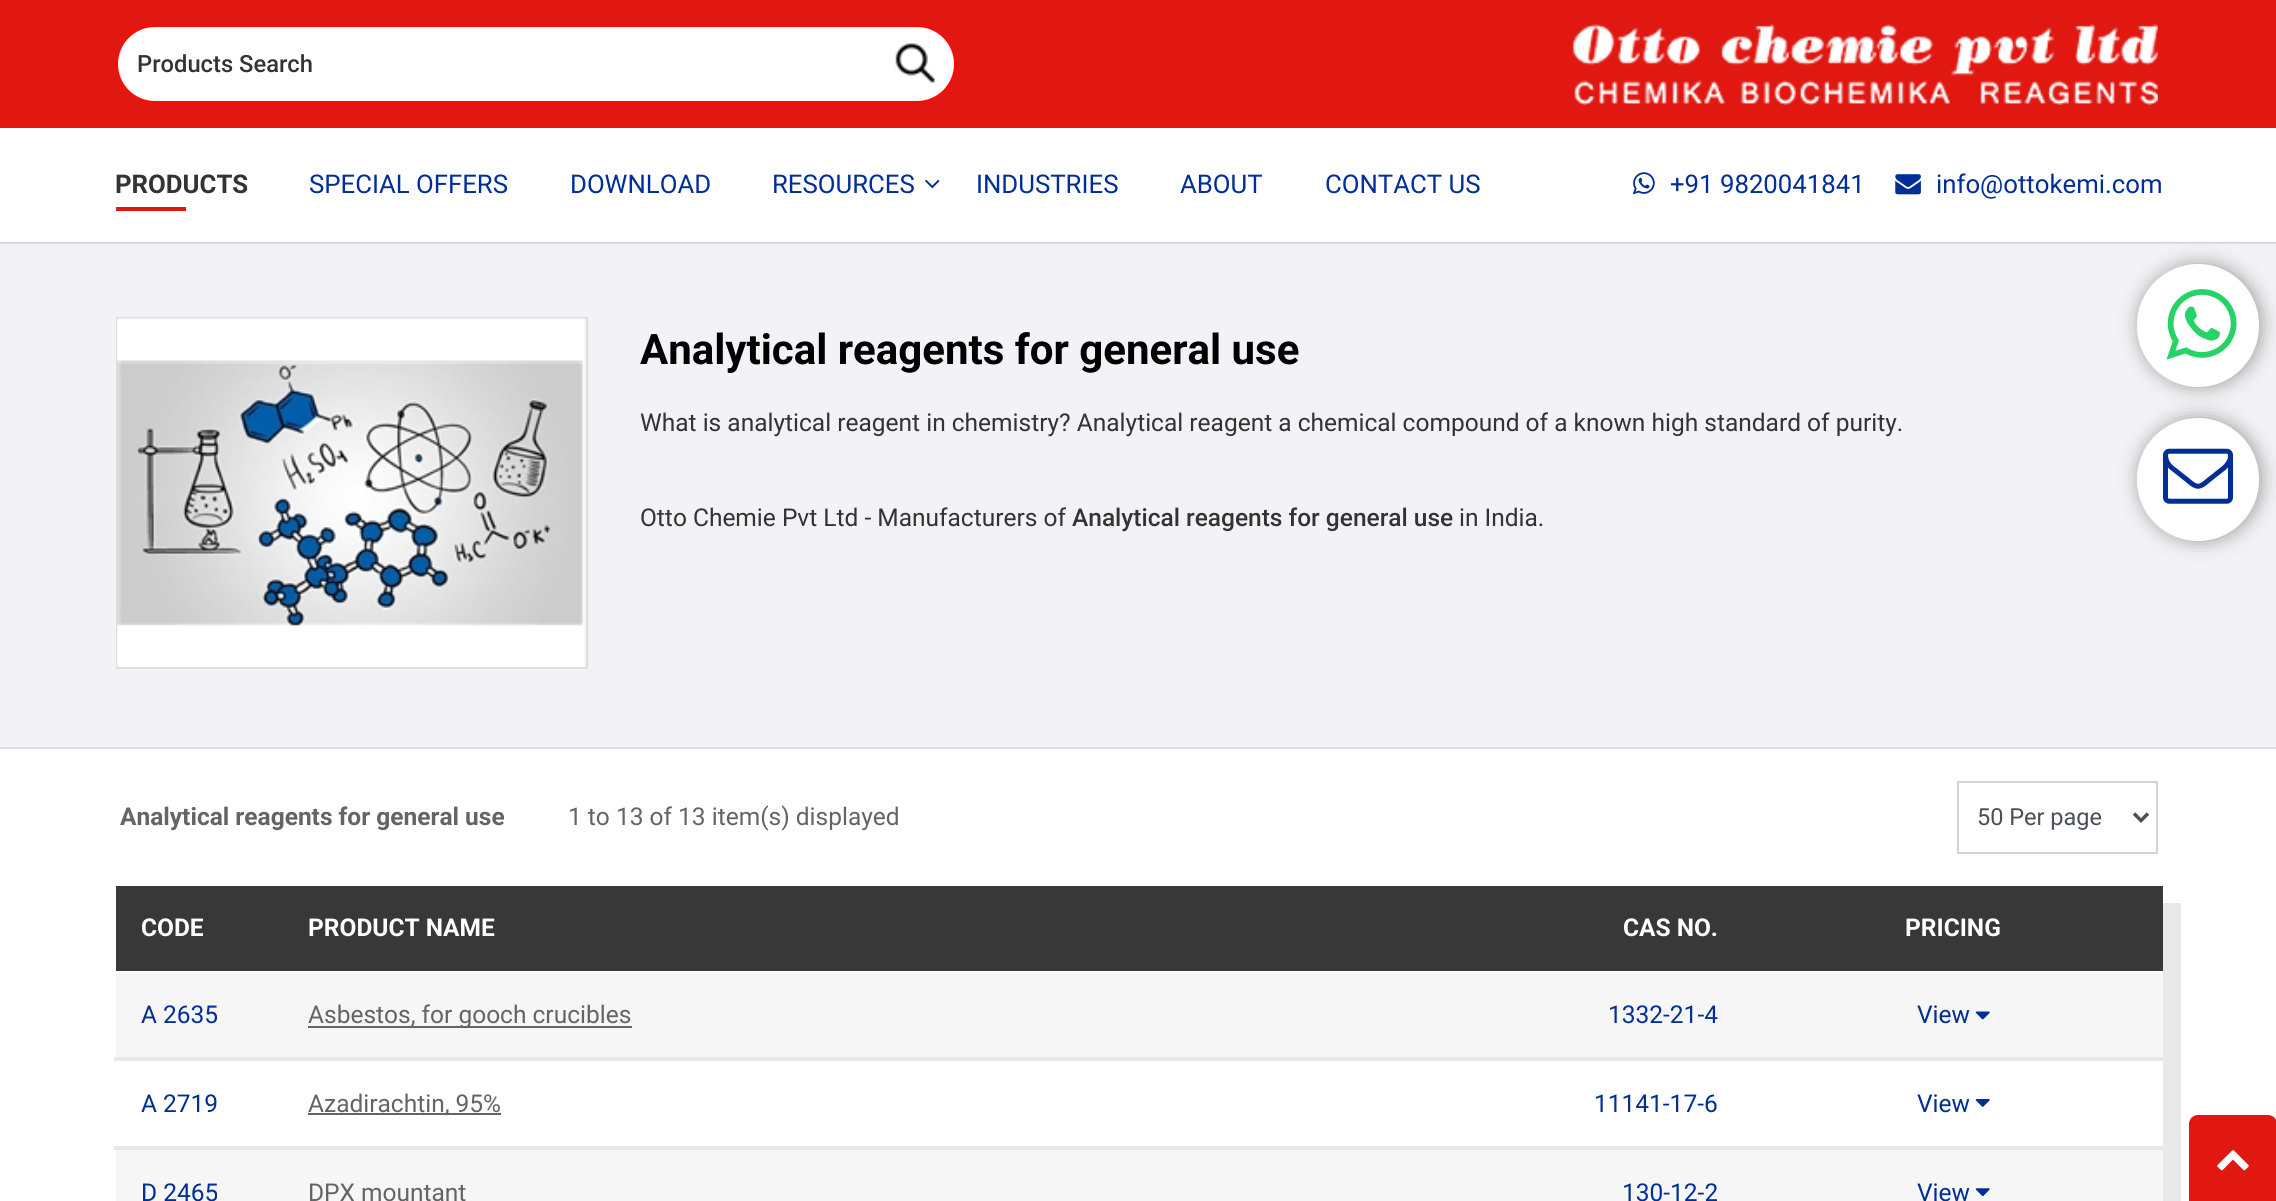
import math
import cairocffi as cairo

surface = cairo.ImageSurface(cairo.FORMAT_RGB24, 2276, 1201)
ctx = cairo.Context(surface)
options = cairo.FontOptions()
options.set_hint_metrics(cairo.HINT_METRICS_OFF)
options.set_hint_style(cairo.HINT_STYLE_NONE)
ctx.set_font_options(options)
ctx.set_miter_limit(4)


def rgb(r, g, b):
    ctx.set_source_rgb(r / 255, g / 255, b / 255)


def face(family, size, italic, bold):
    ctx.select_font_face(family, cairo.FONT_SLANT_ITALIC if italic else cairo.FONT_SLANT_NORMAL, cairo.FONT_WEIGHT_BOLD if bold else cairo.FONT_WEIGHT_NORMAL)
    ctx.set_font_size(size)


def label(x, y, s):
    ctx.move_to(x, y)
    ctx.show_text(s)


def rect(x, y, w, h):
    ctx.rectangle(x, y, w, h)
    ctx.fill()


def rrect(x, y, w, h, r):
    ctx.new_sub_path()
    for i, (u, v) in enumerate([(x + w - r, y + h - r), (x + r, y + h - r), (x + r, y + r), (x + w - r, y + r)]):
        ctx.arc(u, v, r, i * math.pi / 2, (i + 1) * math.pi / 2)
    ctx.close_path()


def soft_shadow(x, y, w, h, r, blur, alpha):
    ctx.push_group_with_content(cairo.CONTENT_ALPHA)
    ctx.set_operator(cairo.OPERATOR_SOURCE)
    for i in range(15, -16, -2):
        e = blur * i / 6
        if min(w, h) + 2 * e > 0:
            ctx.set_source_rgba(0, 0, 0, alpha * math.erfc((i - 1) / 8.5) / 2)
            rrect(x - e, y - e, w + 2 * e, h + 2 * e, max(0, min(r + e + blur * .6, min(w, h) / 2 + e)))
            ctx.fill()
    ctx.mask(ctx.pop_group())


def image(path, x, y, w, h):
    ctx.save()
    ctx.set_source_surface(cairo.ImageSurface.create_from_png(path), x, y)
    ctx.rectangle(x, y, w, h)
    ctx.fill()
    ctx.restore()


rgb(255, 255, 255)
ctx.paint()
rgb(243, 243, 247)
rect(0, 242, 2276, 505)
rgb(0, 0, 0)
soft_shadow(-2, -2, 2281, 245, 0, 1, 0.2)
rgb(156, 156, 156)
soft_shadow(2139, 264, 122, 123, 61, 9.5, 1)
rgb(255, 255, 255)
rect(0, 128, 2276, 114)
rgb(224, 24, 17)
rect(0, 0, 2276, 128)
rgb(255, 255, 255)
rrect(117, 26, 838, 76, 38)
ctx.fill_preserve()
rgb(255, 9, 0)
ctx.stroke()
face('Roboto Medium', 23.75, 0, 0)
rgb(51, 51, 51)
label(137, 72, 'Products Search')
image('image0.png', 895, 43, 40, 40)
image('image1.png', 1572, 24, 586, 81)
face('Roboto', 25.75, 0, 1)
label(115, 193, 'PRODUCTS')
rgb(224, 24, 17)
rect(116, 207, 70, 4)
face('Roboto', 25.75, 0, 0)
rgb(0, 46, 151)
label(309, 193, 'SPECIAL OFFERS')
label(570, 193, 'DOWNLOAD')
label(772, 193, 'RESOURCES')
image('image2.png', 925, 179, 15, 10)
label(976, 193, 'INDUSTRIES')
label(1180, 193, 'ABOUT')
label(1325, 193, 'CONTACT US')
image('image3.png', 1632, 172, 23, 23)
label(1670, 193, '+91 9820041841')
image('image4.png', 1895, 174, 26, 21)
label(1936, 193, 'info@ottokemi.com')
rgb(221, 221, 221)
rect(0, 747, 2276, 2)
ctx.rectangle(117, 318, 470, 350)
rgb(222, 222, 222)
ctx.stroke()
image('image5.png', 117, 318, 468, 349)
face('Roboto', 42, 0, 1)
rgb(0, 0, 0)
label(640, 364, 'Analytical reagents for general use')
face('Roboto', 24.5, 0, 0)
rgb(51, 51, 51)
label(640, 431, 'What is analytical reagent in chemistry? Analytical reagent a chemical compound of a known high standard of purity.')
label(640, 526, 'Otto Chemie Pvt Ltd - Manufacturers of')
face('Roboto Medium', 24.5, 0, 0)
label(1072, 526, 'Analytical reagents for general use')
face('Roboto', 24.5, 0, 0)
label(1459, 526, 'in India.')
face('Roboto', 24.5, 0, 1)
rgb(100, 100, 100)
label(120, 825, 'Analytical reagents for general use')
face('Roboto', 24.5, 0, 0)
label(568, 825, '1 to 13 of 13 item(s) displayed')
ctx.rectangle(1958, 782, 199, 71)
rgb(206, 212, 218)
ctx.stroke()
ctx.new_path()
ctx.move_to(2134, 813.5)
ctx.line_to(2141, 820.5)
ctx.line_to(2148, 813.5)
rgb(73, 80, 87)
ctx.set_line_width(3.5)
ctx.stroke()
face('Roboto', 23.5, 0, 0)
label(1977, 825, '50 Per page')
rgb(233, 233, 233)
ctx.new_path()
ctx.move_to(133, 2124)
ctx.line_to(133, 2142)
ctx.line_to(2181, 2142)
ctx.line_to(2181, 903)
ctx.line_to(2163, 903)
ctx.line_to(2163, 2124)
ctx.close_path()
ctx.fill()
rgb(56, 56, 56)
rect(116, 886, 2047, 85)
face('Roboto', 24.5, 0, 1)
rgb(255, 255, 255)
label(141, 936, 'CODE')
label(308, 936, 'PRODUCT NAME')
label(1623, 936, 'CAS NO.')
label(1905, 936, 'PRICING')
rgb(246, 246, 246)
rect(116, 973, 2047, 84)
rgb(232, 232, 232)
rect(114, 1057, 2051, 4)
face('Roboto', 24.5, 0, 0)
rgb(0, 46, 151)
label(141, 1023, 'A 2635')
rgb(100, 100, 100)
rect(308, 1026, 324, 2)
label(308, 1023, 'Asbestos, for gooch crucibles')
rgb(0, 46, 151)
label(1608, 1023, '1332-21-4')
label(1917, 1023, 'View')
image('image6.png', 1975, 1011, 15, 9)
rgb(232, 232, 232)
rect(114, 1146, 2051, 4)
rgb(0, 46, 151)
label(141, 1112, 'A 2719')
rgb(100, 100, 100)
rect(308, 1113, 193, 2)
label(308, 1112, 'Azadirachtin, 95%')
rgb(0, 46, 151)
label(1594, 1112, '11141-17-6')
label(1917, 1112, 'View')
image('image7.png', 1975, 1099, 15, 8)
rgb(246, 246, 246)
rect(116, 1150, 2047, 51)
rgb(0, 46, 151)
label(141, 1201, 'D 2465')
rgb(100, 100, 100)
label(308, 1201, 'DPX mountant')
rgb(0, 46, 151)
label(1622, 1201, '130-12-2')
label(1917, 1201, 'View')
image('image8.png', 1975, 1188, 15, 9)
rgb(255, 255, 255)
rrect(2137, 264, 122, 123, 61)
ctx.fill()
image('image9.png', 2166, 289, 71, 71)
rgb(224, 24, 17)
ctx.new_path()
ctx.move_to(2198, 1115)
ctx.line_to(2268, 1115)
ctx.curve_to(2273, 1115, 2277, 1119, 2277, 1124)
ctx.line_to(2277, 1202)
ctx.line_to(2189, 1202)
ctx.line_to(2189, 1124)
ctx.curve_to(2189, 1119, 2193, 1115, 2198, 1115)
ctx.close_path()
ctx.fill()
image('image10.png', 2217, 1150, 32, 21)
rgb(156, 156, 156)
soft_shadow(2139, 418, 122, 123, 61, 9.5, 1)
rgb(255, 255, 255)
rrect(2137, 418, 122, 123, 61)
ctx.fill()
image('image11.png', 2163, 448, 70, 56)
surface.write_to_png('render.png')
